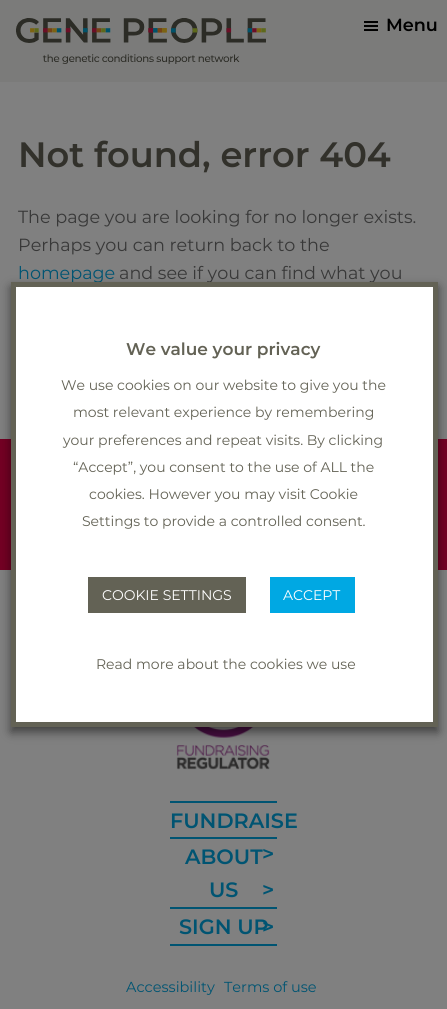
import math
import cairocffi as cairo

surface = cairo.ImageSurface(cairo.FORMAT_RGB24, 447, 1009)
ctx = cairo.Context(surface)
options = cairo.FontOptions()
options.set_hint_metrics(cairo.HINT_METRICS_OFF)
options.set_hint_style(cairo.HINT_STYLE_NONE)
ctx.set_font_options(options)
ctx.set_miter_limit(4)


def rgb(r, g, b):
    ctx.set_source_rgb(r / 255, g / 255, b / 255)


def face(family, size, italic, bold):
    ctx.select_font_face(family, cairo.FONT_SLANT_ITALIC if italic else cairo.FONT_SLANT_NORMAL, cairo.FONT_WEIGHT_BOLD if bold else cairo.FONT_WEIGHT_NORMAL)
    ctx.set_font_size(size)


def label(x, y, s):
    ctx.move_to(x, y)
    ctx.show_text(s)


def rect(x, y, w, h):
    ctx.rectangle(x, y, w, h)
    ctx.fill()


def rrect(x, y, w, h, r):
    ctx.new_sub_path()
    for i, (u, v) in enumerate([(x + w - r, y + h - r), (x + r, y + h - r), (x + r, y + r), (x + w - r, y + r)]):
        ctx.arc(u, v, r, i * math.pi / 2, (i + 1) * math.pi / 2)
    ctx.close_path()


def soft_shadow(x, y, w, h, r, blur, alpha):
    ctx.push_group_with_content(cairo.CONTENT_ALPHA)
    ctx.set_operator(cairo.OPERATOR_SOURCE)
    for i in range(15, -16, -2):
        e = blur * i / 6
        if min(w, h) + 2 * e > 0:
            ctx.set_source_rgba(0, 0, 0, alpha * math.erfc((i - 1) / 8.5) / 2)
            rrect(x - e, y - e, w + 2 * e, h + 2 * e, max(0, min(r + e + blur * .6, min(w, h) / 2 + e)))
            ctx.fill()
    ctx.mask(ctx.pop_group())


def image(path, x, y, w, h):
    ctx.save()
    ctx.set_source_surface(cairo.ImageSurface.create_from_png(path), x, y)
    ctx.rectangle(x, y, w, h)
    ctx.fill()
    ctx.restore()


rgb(128, 128, 128)
ctx.paint()
rgb(123, 123, 122)
rect(0, 0, 447, 82)
image('image0.png', 16, 18, 250, 46)
image('image1.png', 364, 21, 14, 10)
face('Montserrat SemiBold', 17.6, 0, 0)
rgb(0, 0, 0)
label(386, 31, 'Menu')
face('Montserrat SemiBold', 35.25, 0, 0)
rgb(50, 49, 43)
label(18, 167, 'Not found, error 404')
face('Montserrat', 17.6, 0, 0)
rgb(56, 56, 56)
label(18, 223, 'The page you are looking for no longer exists.')
label(18, 251, 'Perhaps you can return back to the')
rgb(0, 84, 114)
label(18, 279, 'homepage')
rgb(56, 56, 56)
label(119, 279, 'and see if you can find what you')
rgb(115, 0, 35)
rect(0, 439, 447, 131)
image('image2.png', 176, 727, 94, 43)
rgb(0, 84, 114)
rect(170, 801, 107, 2)
face('Montserrat SemiBold', 20.75, 0, 0)
label(170, 828, 'FUNDRAISE')
label(262, 861, '>')
rect(170, 837, 107, 2)
label(185, 864, 'ABOUT')
label(209, 897, 'US')
label(262, 897, '>')
rect(170, 907, 107, 2)
rect(170, 944, 107, 2)
label(179, 934, 'SIGN UP')
label(262, 934, '>')
face('Montserrat', 14.5, 0, 0)
label(126, 992, 'Accessibility')
label(224, 992, 'Terms of use')
rgb(0, 0, 0)
soft_shadow(11, 287, 427, 445, 0, 5, 0.5)
rgb(255, 255, 255)
ctx.rectangle(13.5, 284.5, 422, 440)
ctx.fill_preserve()
rgb(99, 98, 85)
ctx.set_line_width(5)
ctx.stroke()
face('Montserrat SemiBold', 17, 0, 0)
label(126, 355, 'We value your privacy')
face('Montserrat', 14, 0, 0)
label(61, 390, 'We use cookies on our website to give you the')
label(73, 417, 'most relevant experience by remembering')
label(63, 445, 'your preferences and repeat visits. By clicking')
label(73, 472, '“Accept”, you consent to the use of ALL the')
label(89, 499, 'cookies. However you may visit Cookie')
label(82, 526, 'Settings to provide a controlled consent.')
rect(88, 577, 158, 36)
rgb(255, 255, 255)
label(102, 600, 'COOKIE SETTINGS')
rgb(0, 168, 227)
rect(270, 577, 85, 36)
rgb(255, 255, 255)
label(283, 600, 'ACCEPT')
rgb(99, 98, 85)
label(96, 669, 'Read more about the cookies we use')
surface.write_to_png('render.png')
